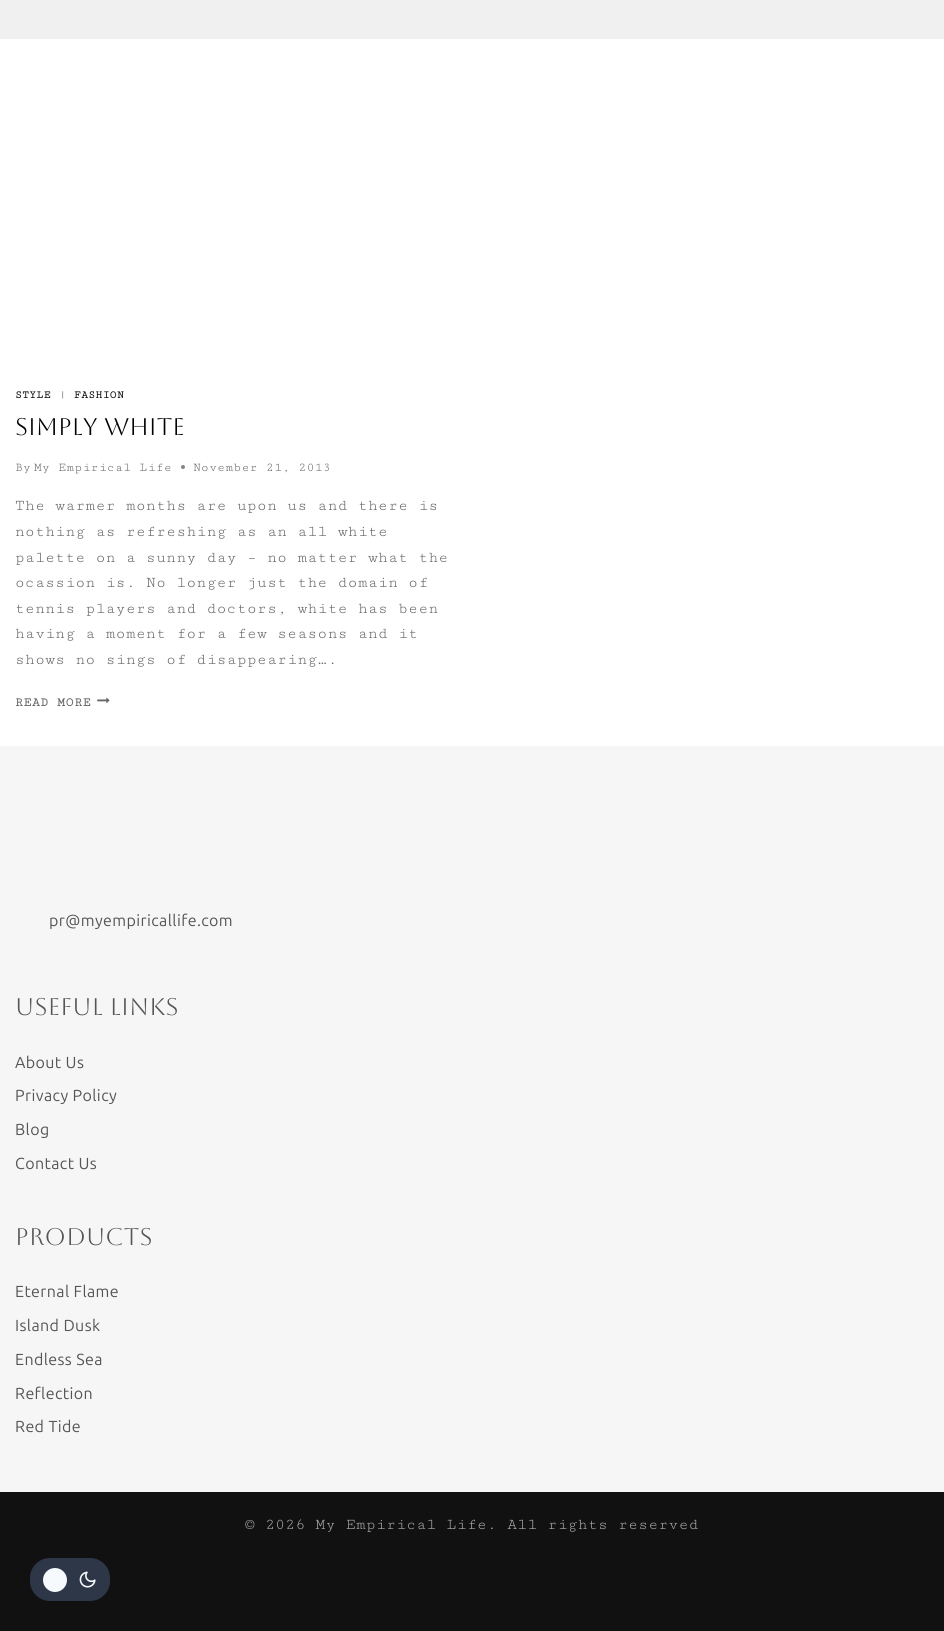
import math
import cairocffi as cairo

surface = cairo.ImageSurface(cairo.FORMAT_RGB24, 944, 1631)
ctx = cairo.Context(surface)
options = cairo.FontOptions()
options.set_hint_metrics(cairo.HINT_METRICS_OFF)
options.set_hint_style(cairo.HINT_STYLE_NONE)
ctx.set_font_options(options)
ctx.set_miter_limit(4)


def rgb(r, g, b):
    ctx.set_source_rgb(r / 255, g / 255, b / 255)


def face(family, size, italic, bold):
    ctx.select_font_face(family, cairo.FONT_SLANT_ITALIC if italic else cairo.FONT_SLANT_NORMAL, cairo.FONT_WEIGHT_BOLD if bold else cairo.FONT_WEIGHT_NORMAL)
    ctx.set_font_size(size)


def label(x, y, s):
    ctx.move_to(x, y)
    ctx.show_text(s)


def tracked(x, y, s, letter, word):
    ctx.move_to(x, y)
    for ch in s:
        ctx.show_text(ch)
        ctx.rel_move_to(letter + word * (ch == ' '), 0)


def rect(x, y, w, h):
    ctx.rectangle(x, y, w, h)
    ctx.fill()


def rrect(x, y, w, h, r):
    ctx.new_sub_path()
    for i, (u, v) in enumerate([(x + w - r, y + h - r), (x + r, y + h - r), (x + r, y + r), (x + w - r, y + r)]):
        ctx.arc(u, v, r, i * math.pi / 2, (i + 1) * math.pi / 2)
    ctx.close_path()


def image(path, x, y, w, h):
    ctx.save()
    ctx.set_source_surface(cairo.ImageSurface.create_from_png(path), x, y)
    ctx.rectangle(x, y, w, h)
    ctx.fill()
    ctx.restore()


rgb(255, 255, 255)
ctx.paint()
rgb(240, 240, 240)
rect(0, 0, 944, 39)
face('Cutive Mono', 11, 0, 1)
rgb(17, 17, 17)
tracked(15, 398, 'STYLE', 0.5, 0)
face('Cutive Mono', 11, 0, 0)
rgb(102, 102, 102)
tracked(59, 398, '|', 0.5, 0)
face('Cutive Mono', 11, 0, 1)
rgb(17, 17, 17)
tracked(74, 398, 'FASHION', 0.5, 0)
face('Aboreto', 24, 0, 0)
rgb(0, 0, 0)
label(15, 435, 'SIMPLY WHITE')
face('Cutive Mono', 12.75, 0, 0)
rgb(102, 102, 102)
tracked(15, 471, 'By', 0.4, 0)
tracked(34, 471, 'My Empirical Life', 0.4, 0)
rgb(133, 133, 133)
ctx.new_path()
ctx.arc(183, 467, 2, 0, 2 * math.pi)
ctx.fill()
rgb(102, 102, 102)
tracked(193, 471, 'November 21, 2013', 0.4, 0)
face('Cutive Mono', 16, 0, 0)
tracked(15, 510, 'The warmer months are upon us and there is', 0.4, 0)
tracked(15, 536, 'nothing as refreshing as an all white', 0.4, 0)
tracked(15, 562, 'palette on a sunny day – no matter what the', 0.4, 0)
tracked(15, 587, 'ocassion is. No longer just the domain of', 0.4, 0)
tracked(15, 613, 'tennis players and doctors, white has been', 0.4, 0)
tracked(15, 638, 'having a moment for a few seasons and it', 0.4, 0)
tracked(15, 664, 'shows no sings of disappearing….', 0.4, 0)
face('Cutive Mono', 12.75, 0, 1)
tracked(15, 706, 'READ MORE', 0.75, 0)
image('image0.png', 97, 697, 13, 7)
rgb(17, 17, 17)
rect(0, 1492, 944, 139)
rgb(246, 246, 246)
rect(0, 746, 944, 746)
face('Ubuntu', 16, 0, 0)
rgb(85, 85, 85)
tracked(49, 926, 'pr@myempiricallife.com', 0.4, 0)
face('Aboreto', 24, 0, 0)
tracked(15, 1015, 'Useful Links', 0.25, 0)
face('Ubuntu', 16, 0, 0)
tracked(15, 1068, 'About Us', 0.4, 0)
tracked(15, 1101, 'Privacy Policy', 0.4, 0)
tracked(15, 1135, 'Blog', 0.4, 0)
tracked(15, 1169, 'Contact Us', 0.4, 0)
face('Aboreto', 24, 0, 0)
tracked(15, 1245, 'Products', 0.25, 0)
face('Ubuntu', 16, 0, 0)
tracked(15, 1297, 'Eternal Flame', 0.4, 0)
tracked(15, 1331, 'Island Dusk', 0.4, 0)
tracked(15, 1365, 'Endless Sea', 0.4, 0)
tracked(15, 1399, 'Reflection', 0.4, 0)
tracked(15, 1432, 'Red Tide', 0.4, 0)
face('Cutive Mono', 16, 0, 0)
rgb(170, 170, 170)
tracked(245, 1529, '© 2026 My Empirical Life. All rights reserved', 0.4, 0)
rgb(45, 55, 72)
rrect(30, 1558, 80, 43, 20)
ctx.fill()
rgb(247, 250, 252)
ctx.arc(55, 1580, 12, 0, 2 * math.pi)
ctx.fill()
image('image1.png', 79, 1571, 17, 17)
surface.write_to_png('render.png')
